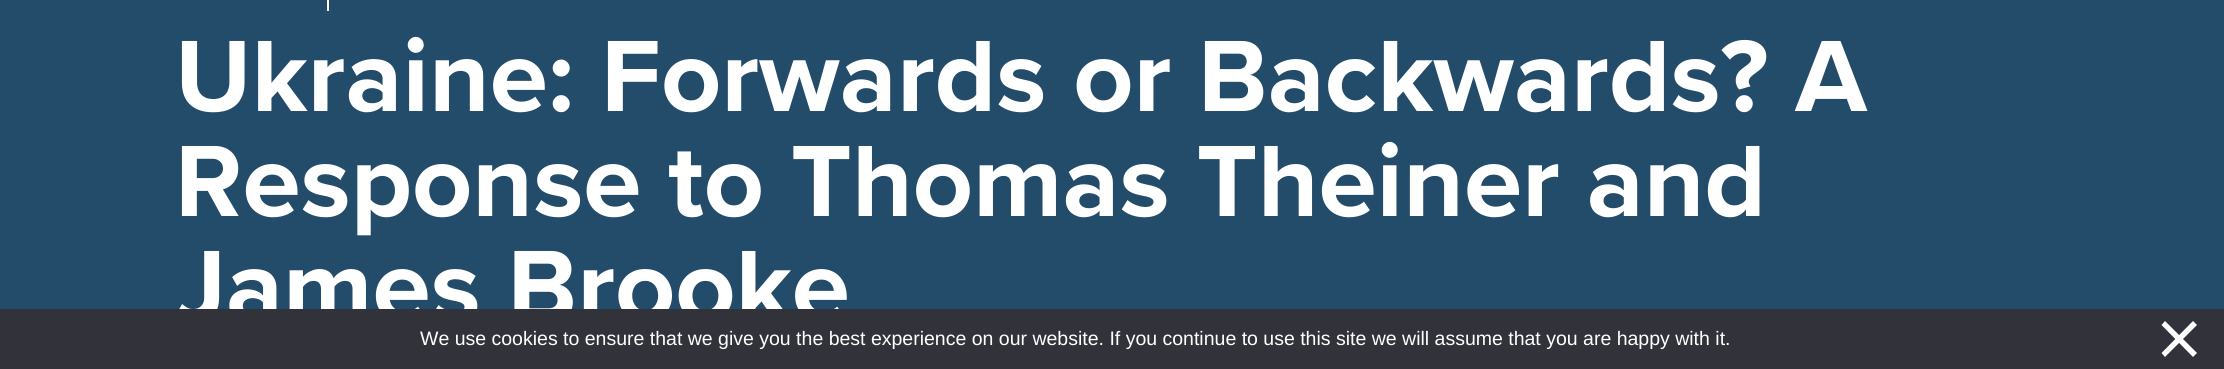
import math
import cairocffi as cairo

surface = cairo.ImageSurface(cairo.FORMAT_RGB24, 2224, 369)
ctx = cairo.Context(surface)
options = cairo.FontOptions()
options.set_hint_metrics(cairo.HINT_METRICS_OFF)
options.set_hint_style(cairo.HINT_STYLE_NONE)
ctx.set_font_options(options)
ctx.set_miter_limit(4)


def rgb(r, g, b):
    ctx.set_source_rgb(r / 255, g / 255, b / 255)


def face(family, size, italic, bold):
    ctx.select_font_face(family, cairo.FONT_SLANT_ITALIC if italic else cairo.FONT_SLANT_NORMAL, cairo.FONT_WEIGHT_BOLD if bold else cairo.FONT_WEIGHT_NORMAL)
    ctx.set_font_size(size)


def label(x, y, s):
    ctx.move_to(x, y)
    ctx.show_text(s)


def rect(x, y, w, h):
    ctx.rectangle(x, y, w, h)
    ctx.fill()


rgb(35, 76, 106)
ctx.paint()
rgb(255, 255, 255)
rect(327, 0, 2, 11)
face('Proxima Nova', 105, 0, 1)
label(175, 111, 'Ukraine: Forwards or Backwards? A')
label(175, 216, 'Response to Thomas Theiner and')
label(175, 321, 'James Brooke')
rgb(50, 50, 58)
rect(0, 309, 2224, 60)
face('Liberation Sans', 19.5, 0, 0)
rgb(255, 255, 255)
label(420, 345, 'We use cookies to ensure that we give you the best experience on our website. If you continue to use this site we will assume that you are happy with it.')
ctx.new_path()
ctx.move_to(2193, 321)
ctx.line_to(2197, 325)
ctx.line_to(2165, 357)
ctx.line_to(2161.5, 353)
ctx.close_path()
ctx.fill()
ctx.new_path()
ctx.move_to(2161.5, 325)
ctx.line_to(2165, 321)
ctx.line_to(2197, 353)
ctx.line_to(2193, 357)
ctx.close_path()
ctx.fill()
surface.write_to_png('render.png')
